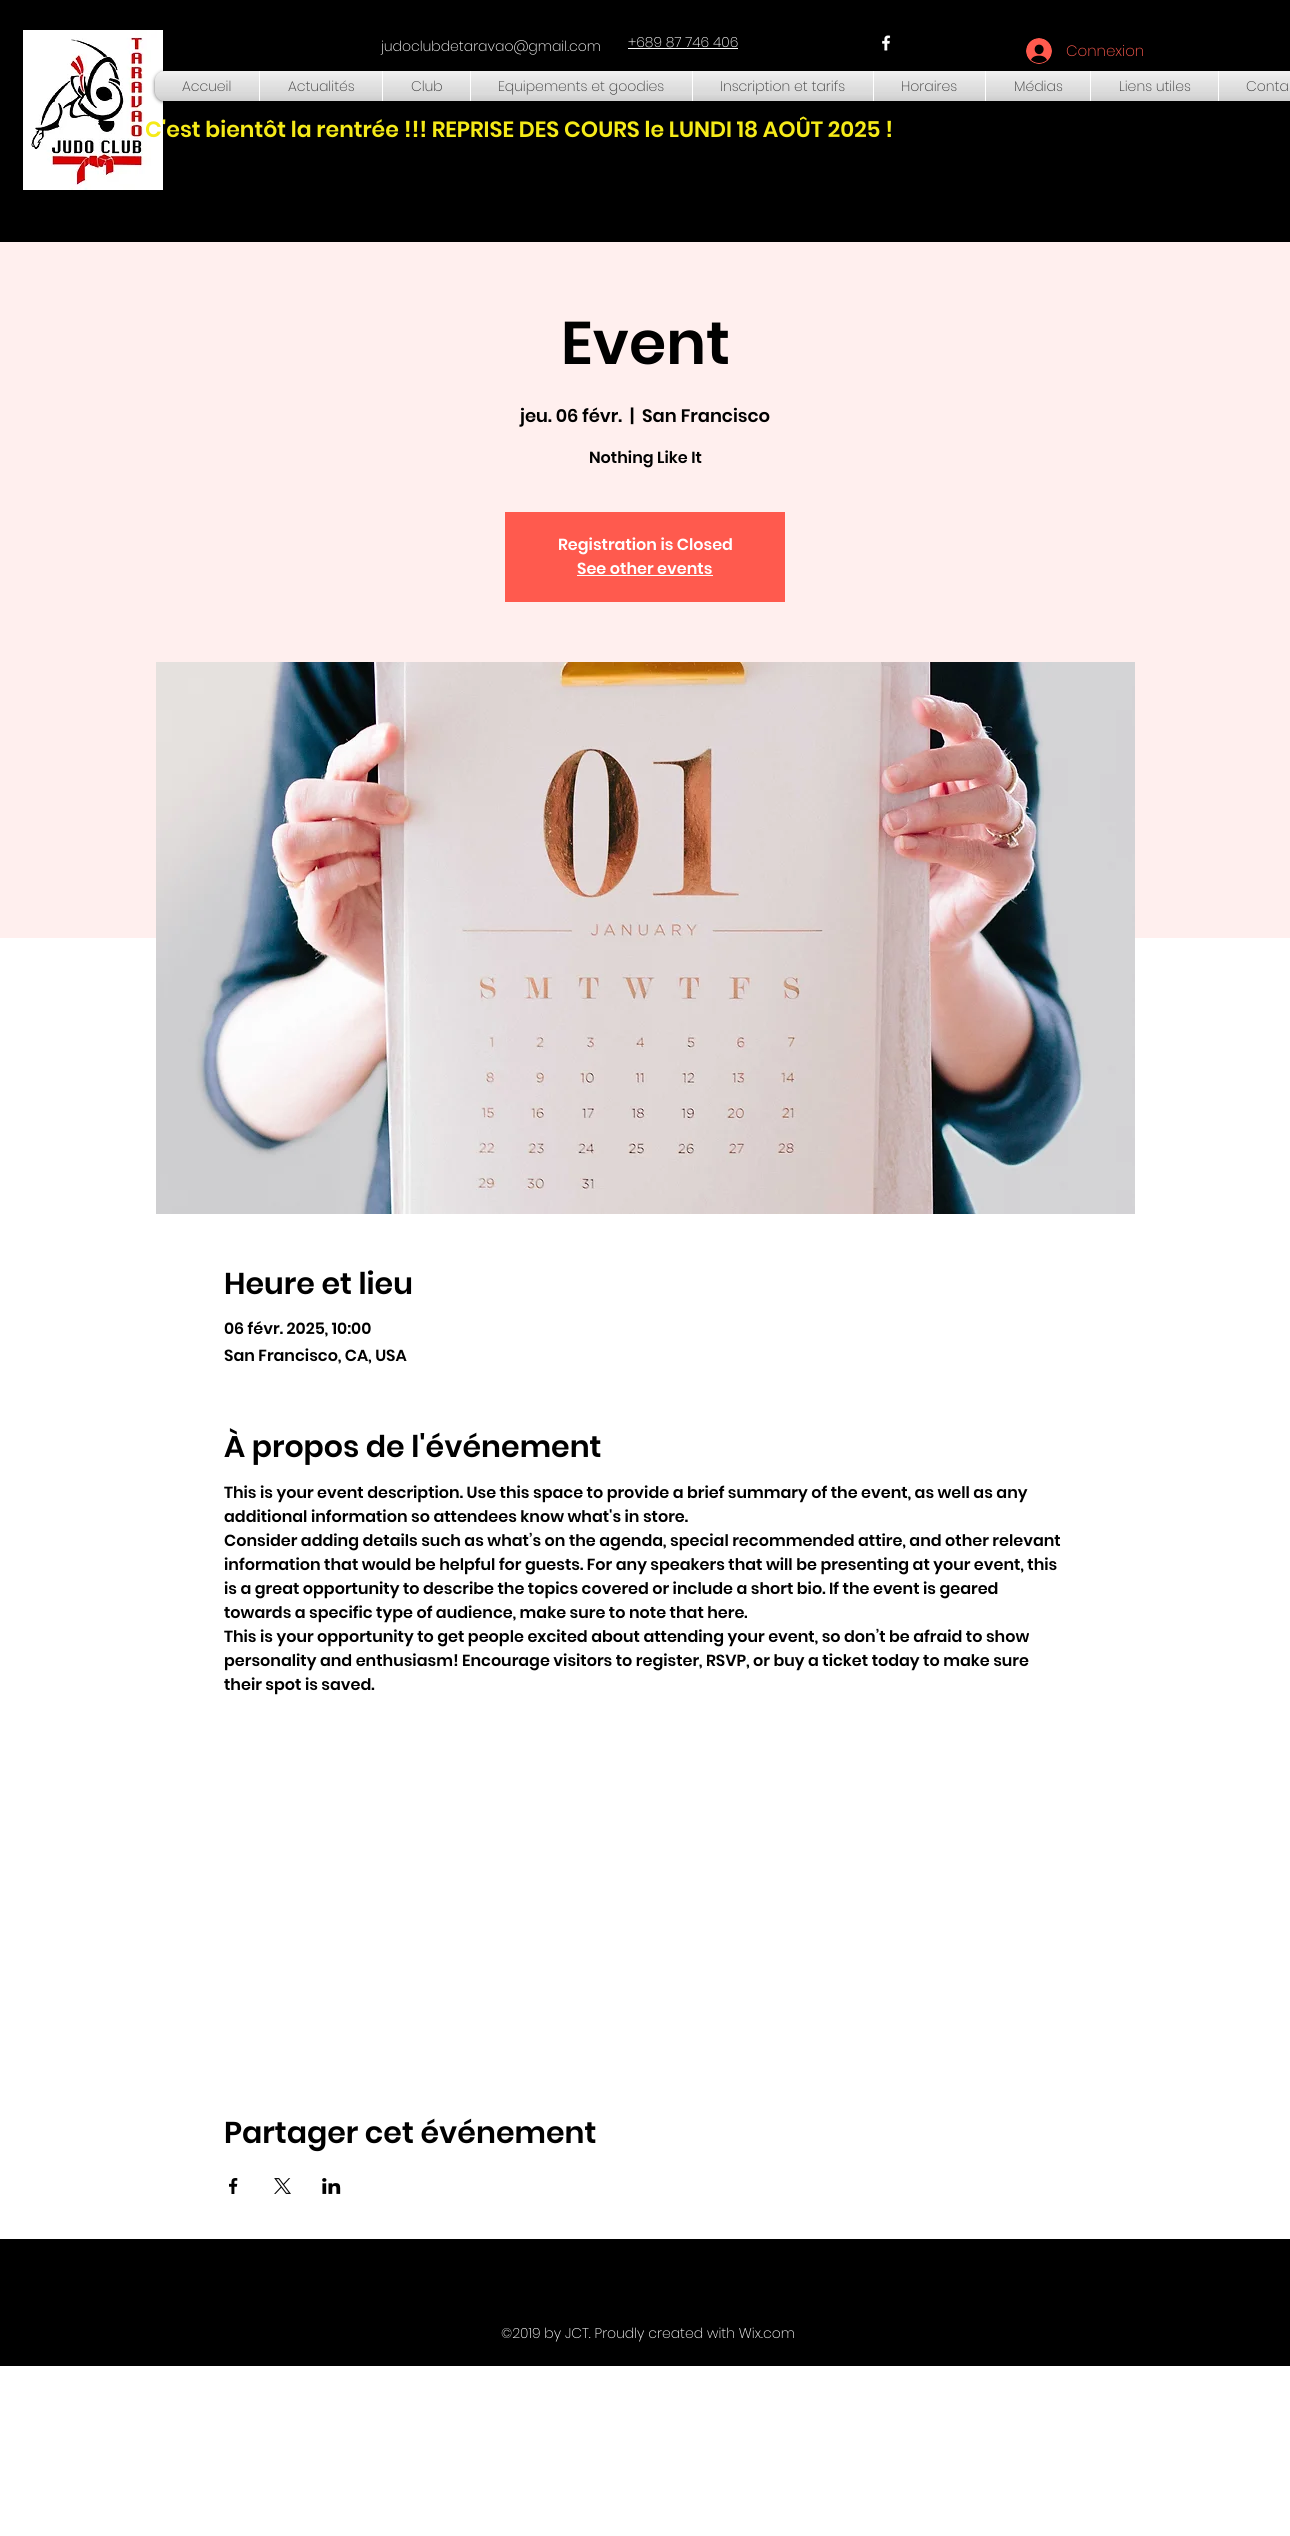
import math
import cairocffi as cairo

surface = cairo.ImageSurface(cairo.FORMAT_RGB24, 1290, 2536)
ctx = cairo.Context(surface)
options = cairo.FontOptions()
options.set_hint_metrics(cairo.HINT_METRICS_OFF)
options.set_hint_style(cairo.HINT_STYLE_NONE)
ctx.set_font_options(options)
ctx.set_miter_limit(4)


def rgb(r, g, b):
    ctx.set_source_rgb(r / 255, g / 255, b / 255)


def face(family, size, italic, bold):
    ctx.select_font_face(family, cairo.FONT_SLANT_ITALIC if italic else cairo.FONT_SLANT_NORMAL, cairo.FONT_WEIGHT_BOLD if bold else cairo.FONT_WEIGHT_NORMAL)
    ctx.set_font_size(size)


def label(x, y, s):
    ctx.move_to(x, y)
    ctx.show_text(s)


def rect(x, y, w, h):
    ctx.rectangle(x, y, w, h)
    ctx.fill()


def rrect(x, y, w, h, r):
    ctx.new_sub_path()
    for i, (u, v) in enumerate([(x + w - r, y + h - r), (x + r, y + h - r), (x + r, y + r), (x + w - r, y + r)]):
        ctx.arc(u, v, r, i * math.pi / 2, (i + 1) * math.pi / 2)
    ctx.close_path()


def soft_shadow(x, y, w, h, r, blur, alpha):
    ctx.push_group_with_content(cairo.CONTENT_ALPHA)
    ctx.set_operator(cairo.OPERATOR_SOURCE)
    for i in range(15, -16, -2):
        e = blur * i / 6
        if min(w, h) + 2 * e > 0:
            ctx.set_source_rgba(0, 0, 0, alpha * math.erfc((i - 1) / 8.5) / 2)
            rrect(x - e, y - e, w + 2 * e, h + 2 * e, max(0, min(r + e + blur * .6, min(w, h) / 2 + e)))
            ctx.fill()
    ctx.mask(ctx.pop_group())


def image(path, x, y, w, h):
    ctx.save()
    ctx.set_source_surface(cairo.ImageSurface.create_from_png(path), x, y)
    ctx.rectangle(x, y, w, h)
    ctx.fill()
    ctx.restore()


rgb(255, 255, 255)
ctx.paint()
rgb(0, 0, 0)
rect(0, 0, 1290, 242)
image('image0.png', 23, 30, 140, 160)
face('Poppins ExtraLight', 14, 0, 0)
rgb(255, 255, 255)
label(381, 51, 'judoclubdetaravao@gmail.com')
label(628, 47, '+689 87 746 406')
rect(628, 48, 110, 1)
image('image1.png', 882, 35, 9, 16)
image('image2.png', 1026, 38, 26, 26)
face('Poppins ExtraLight', 15, 0, 0)
rgb(255, 90, 78)
label(1066, 56, 'Connexion')
face('Poppins SemiBold', 22, 0, 0)
rgb(245, 234, 24)
label(145, 137, 'C\'est bientôt la rentrée !!! REPRISE DES COURS le LUNDI 18 AOÛT 2025 !')
rgb(0, 0, 0)
soft_shadow(155, 72, 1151, 30, 10, 2, 0.6)
image('image3.png', 155, 71, 10, 10)
image('image4.png', 155, 71, 10, 30)
rgb(241, 241, 241)
ctx.new_path()
ctx.move_to(165, 71)
ctx.line_to(259, 71)
ctx.line_to(259, 101)
ctx.line_to(165, 101)
ctx.curve_to(159.5, 101, 155, 96.5, 155, 91)
ctx.line_to(155, 81)
ctx.curve_to(155, 75.5, 159.5, 71, 165, 71)
ctx.close_path()
ctx.fill()
face('Poppins ExtraLight', 14, 0, 0)
rgb(0, 0, 0)
label(182, 91, 'Accueil')
image('image5.png', 155, 71, 104, 21)
image('image6.png', 155, 71, 104, 30)
rgb(241, 241, 241)
rect(260, 71, 122, 30)
rgb(255, 255, 255)
rect(259, 71, 1, 30)
rgb(0, 0, 0)
label(288, 91, 'Actualités')
image('image7.png', 260, 71, 122, 21)
image('image8.png', 260, 71, 122, 30)
rgb(241, 241, 241)
rect(383, 71, 87, 30)
rgb(255, 255, 255)
rect(382, 71, 1, 30)
rgb(0, 0, 0)
label(411, 91, 'Club')
image('image9.png', 383, 71, 87, 21)
image('image10.png', 383, 71, 87, 30)
rgb(241, 241, 241)
rect(471, 71, 221, 30)
rgb(255, 255, 255)
rect(470, 71, 1, 30)
rgb(0, 0, 0)
label(498, 91, 'Equipements et goodies')
image('image11.png', 471, 71, 221, 24)
image('image12.png', 471, 71, 221, 30)
rgb(241, 241, 241)
rect(693, 71, 180, 30)
rgb(255, 255, 255)
rect(692, 71, 1, 30)
rgb(0, 0, 0)
label(720, 91, 'Inscription et tarifs')
image('image13.png', 693, 71, 180, 24)
image('image14.png', 693, 71, 180, 30)
rgb(241, 241, 241)
rect(874, 71, 111, 30)
rgb(255, 255, 255)
rect(873, 71, 1, 30)
rgb(0, 0, 0)
label(901, 91, 'Horaires')
image('image15.png', 874, 71, 111, 21)
image('image16.png', 874, 71, 111, 30)
rgb(241, 241, 241)
rect(986, 71, 104, 30)
rgb(255, 255, 255)
rect(985, 71, 1, 30)
rgb(0, 0, 0)
label(1014, 91, 'Médias')
image('image17.png', 986, 71, 104, 21)
image('image18.png', 986, 71, 104, 30)
rgb(241, 241, 241)
rect(1091, 71, 127, 30)
rgb(255, 255, 255)
rect(1090, 71, 1, 30)
rgb(0, 0, 0)
label(1119, 91, 'Liens utiles')
image('image19.png', 1091, 71, 127, 21)
image('image20.png', 1091, 71, 127, 30)
rgb(241, 241, 241)
rect(1219, 71, 71, 30)
rgb(255, 255, 255)
rect(1218, 71, 1, 30)
rgb(0, 0, 0)
label(1246, 91, 'Conta')
image('image21.png', 1219, 71, 71, 21)
image('image22.png', 1219, 71, 71, 30)
rgb(255, 239, 238)
rect(0, 242, 1290, 696)
face('Poppins SemiBold', 60, 0, 0)
rgb(0, 0, 0)
label(561, 364, 'Event')
face('Poppins SemiBold', 18, 0, 0)
label(520, 422, 'jeu. 06 févr.')
label(630, 422, '|')
label(642, 422, 'San Francisco')
face('Poppins SemiBold', 16, 0, 0)
label(589, 463, 'Nothing Like It')
rgb(255, 90, 78)
rect(505, 512, 280, 90)
rgb(255, 255, 255)
label(558, 550, 'Registration is Closed')
label(577, 574, 'See other events')
rect(577, 575, 136, 1)
image('image23.png', 156, 662, 979, 552)
face('Poppins SemiBold', 30, 0, 0)
rgb(0, 0, 0)
label(224, 1294, 'Heure et lieu')
face('Poppins SemiBold', 16, 0, 0)
label(224, 1334, '06 févr. 2025, 10:00')
label(224, 1361, 'San Francisco, CA, USA')
face('Poppins SemiBold', 30, 0, 0)
label(224, 1457, 'À propos de l\'événement')
face('Poppins SemiBold', 16, 0, 0)
label(224, 1498, 'This is your event description. Use this space to provide a brief summary of the event, as well as any')
label(224, 1522, 'additional information so attendees know what\'s in store.')
label(224, 1546, 'Consider adding details such as what’s on the agenda, special recommended attire, and other relevant')
label(224, 1570, 'information that would be helpful for guests. For any speakers that will be presenting at your event, this')
label(224, 1594, 'is a great opportunity to describe the topics covered or include a short bio. If the event is geared')
label(224, 1618, 'towards a specific type of audience, make sure to note that here.')
label(224, 1642, 'This is your opportunity to get people excited about attending your event, so don’t be afraid to show')
label(224, 1666, 'personality and enthusiasm! Encourage visitors to register, RSVP, or buy a ticket today to make sure')
label(224, 1690, 'their spot is saved.')
face('Poppins SemiBold', 30, 0, 0)
label(224, 2143, 'Partager cet événement')
image('image24.png', 229, 2178, 9, 16)
image('image25.png', 274, 2178, 17, 16)
image('image26.png', 322, 2178, 19, 16)
rect(0, 2239, 1290, 127)
face('Poppins ExtraLight', 14, 0, 0)
rgb(255, 255, 255)
label(501, 2338, '©2019 by JCT. Proudly created with Wix.com')
surface.write_to_png('render.png')
